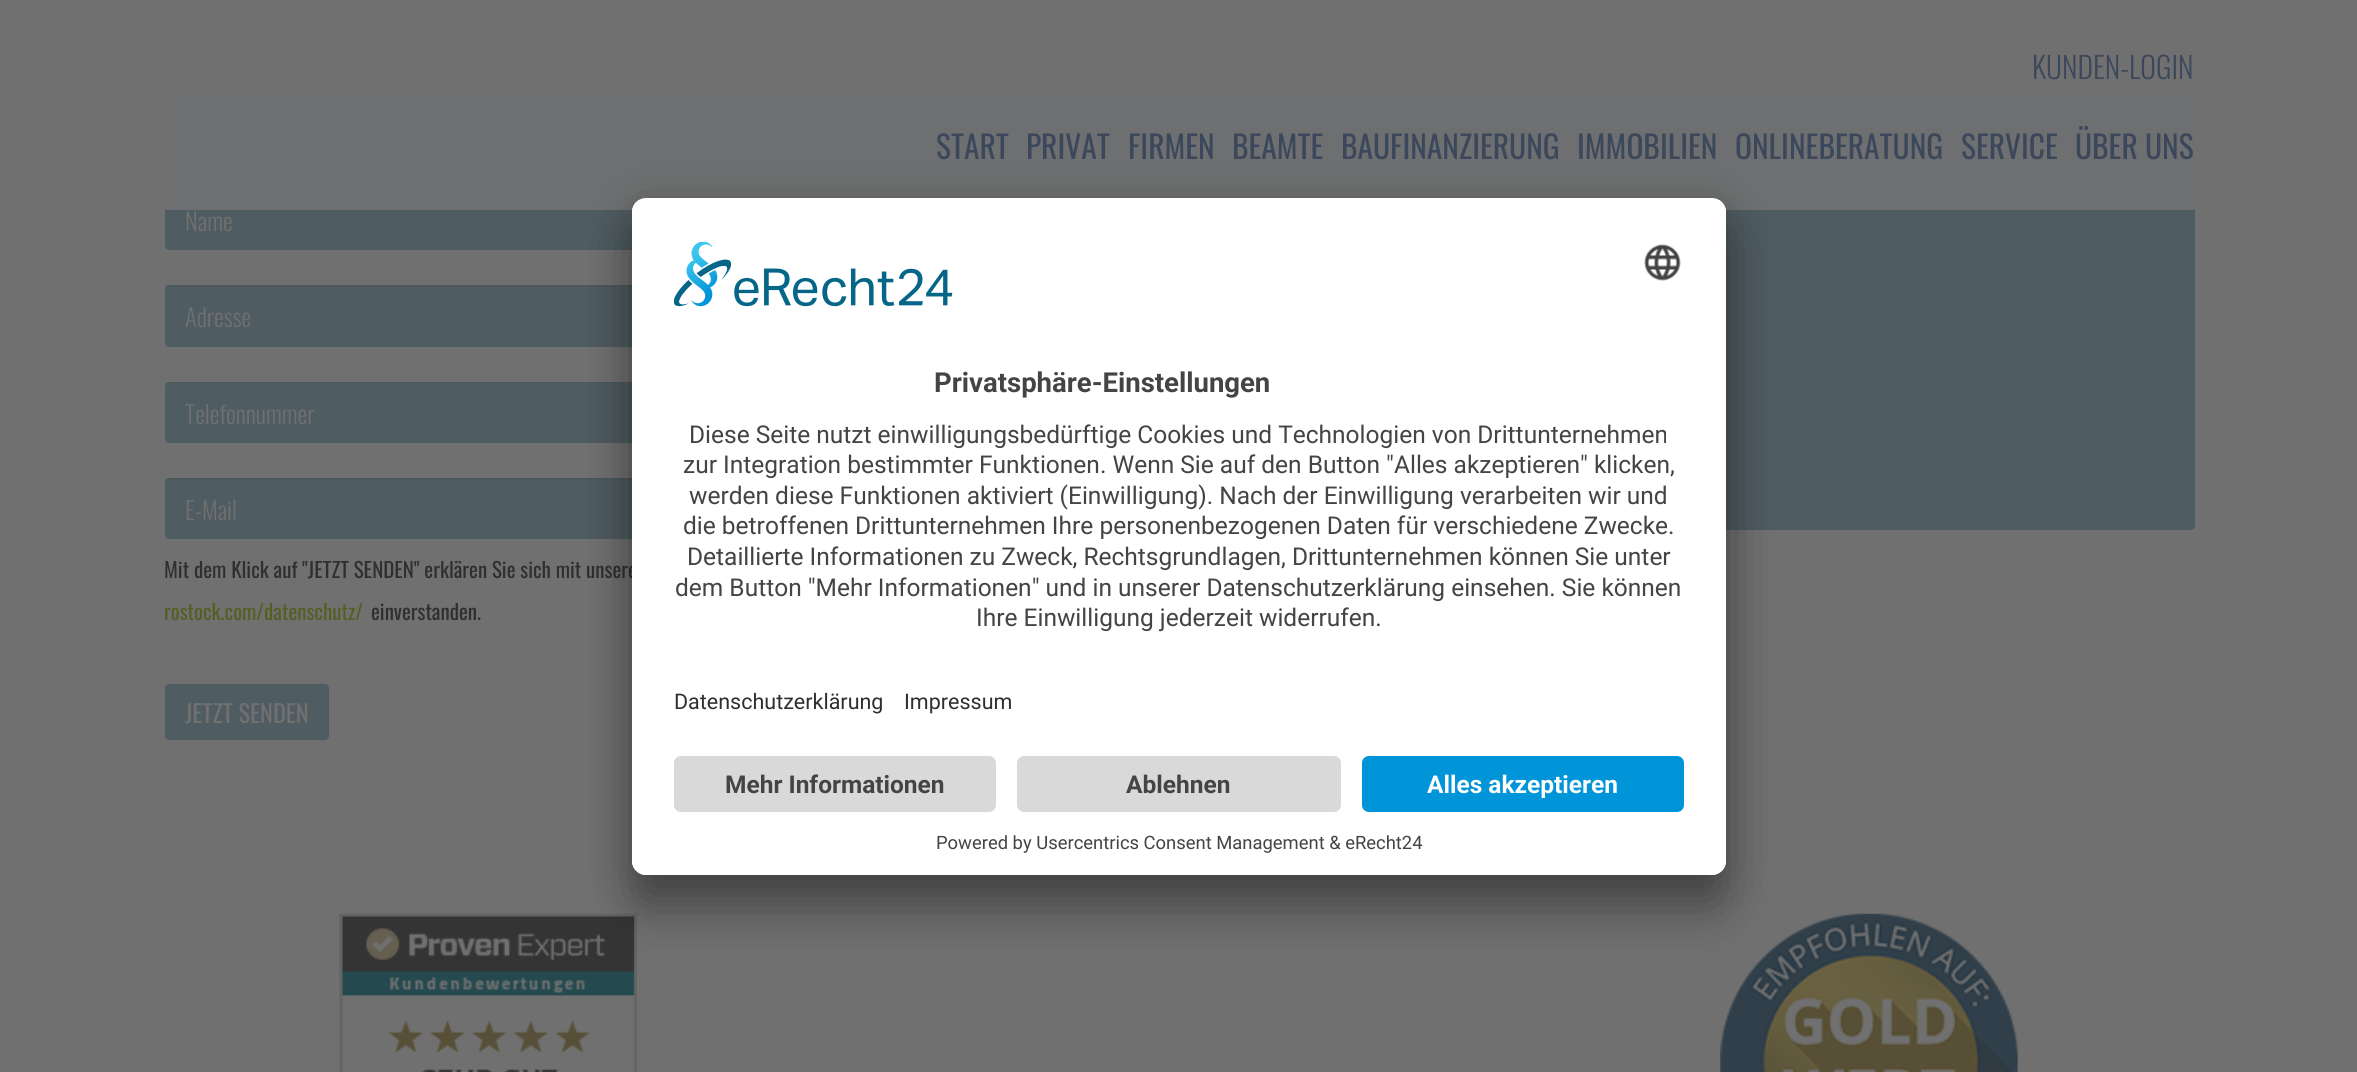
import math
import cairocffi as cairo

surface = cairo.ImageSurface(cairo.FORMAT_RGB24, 2357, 1072)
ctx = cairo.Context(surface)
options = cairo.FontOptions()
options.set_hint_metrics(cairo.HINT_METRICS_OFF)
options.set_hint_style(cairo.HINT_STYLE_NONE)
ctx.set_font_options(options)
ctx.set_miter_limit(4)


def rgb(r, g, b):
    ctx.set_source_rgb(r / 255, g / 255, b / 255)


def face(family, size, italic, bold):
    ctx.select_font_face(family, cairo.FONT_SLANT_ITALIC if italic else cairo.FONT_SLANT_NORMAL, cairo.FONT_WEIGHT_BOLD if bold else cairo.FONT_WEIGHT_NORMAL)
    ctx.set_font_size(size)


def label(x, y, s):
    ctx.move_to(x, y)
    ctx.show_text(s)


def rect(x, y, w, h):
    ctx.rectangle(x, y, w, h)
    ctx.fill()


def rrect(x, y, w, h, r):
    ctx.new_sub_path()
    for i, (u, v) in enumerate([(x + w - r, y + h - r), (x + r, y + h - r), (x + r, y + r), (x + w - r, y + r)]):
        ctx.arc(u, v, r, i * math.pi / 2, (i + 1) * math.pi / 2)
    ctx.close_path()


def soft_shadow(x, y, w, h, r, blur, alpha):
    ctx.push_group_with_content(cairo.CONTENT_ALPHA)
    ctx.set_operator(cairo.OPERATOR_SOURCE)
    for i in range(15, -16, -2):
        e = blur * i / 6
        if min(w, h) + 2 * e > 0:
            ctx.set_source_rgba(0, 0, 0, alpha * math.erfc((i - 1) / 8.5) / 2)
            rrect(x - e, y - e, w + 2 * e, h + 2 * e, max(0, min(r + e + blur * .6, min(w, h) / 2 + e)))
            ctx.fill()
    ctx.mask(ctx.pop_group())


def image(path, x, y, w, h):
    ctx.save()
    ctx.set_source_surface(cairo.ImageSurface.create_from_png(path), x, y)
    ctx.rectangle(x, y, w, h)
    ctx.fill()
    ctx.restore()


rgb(112, 112, 112)
ctx.paint()
rgb(79, 92, 97)
rrect(165, 189, 700, 61, 4)
ctx.fill()
rrect(1201, 93, 994, 437, 4)
ctx.fill()
ctx.set_source_rgba(0.141, 0.141, 0.141, 0.07)
ctx.new_path()
ctx.move_to(1204, 94)
ctx.line_to(2191, 94)
ctx.curve_to(2193, 94, 2194, 96, 2194, 98)
ctx.line_to(2194, 529)
ctx.curve_to(2195, 528, 2195, 527, 2195, 526)
ctx.line_to(2195, 97)
ctx.curve_to(2195, 95, 2193, 93, 2191, 93)
ctx.line_to(1205, 93)
ctx.curve_to(1204, 93, 1202, 94, 1202, 95)
ctx.close_path()
ctx.fill()
rgb(110, 111, 112)
rect(165, 93, 2030, 117)
face('Oswald Light', 29.75, 0, 0)
rgb(59, 71, 91)
label(2032, 79, 'KUNDEN-LOGIN')
face('Oswald', 31.5, 0, 0)
label(936, 159, 'START')
label(1026, 159, 'PRIVAT')
label(1128, 159, 'FIRMEN')
label(1232, 159, 'BEAMTE')
label(1341, 159, 'BAUFINANZIERUNG')
label(1577, 159, 'IMMOBILIEN')
label(1735, 159, 'ONLINEBERATUNG')
label(1961, 159, 'SERVICE')
label(2075, 159, 'ÜBER UNS')
face('Oswald Light', 24.5, 0, 0)
rgb(112, 112, 112)
label(185, 231, 'Name')
rgb(79, 92, 97)
rrect(165, 285, 700, 62, 4)
ctx.fill()
ctx.set_source_rgba(0.141, 0.141, 0.141, 0.07)
ctx.new_path()
ctx.move_to(168, 287)
ctx.line_to(861, 287)
ctx.curve_to(863, 287, 864, 289, 864, 290)
ctx.line_to(864, 346)
ctx.curve_to(865, 345, 865, 344, 865, 343)
ctx.line_to(865, 289)
ctx.curve_to(865, 287, 863, 285, 861, 285)
ctx.line_to(169, 285)
ctx.curve_to(167, 285, 165, 286, 165, 288)
ctx.close_path()
ctx.fill()
ctx.save()
ctx.rectangle(186, 298, 658, 36)
ctx.clip()
rgb(112, 112, 112)
label(185, 327, 'Adresse')
ctx.restore()
rgb(79, 92, 97)
rrect(165, 382, 700, 61, 4)
ctx.fill()
ctx.set_source_rgba(0.141, 0.141, 0.141, 0.07)
ctx.new_path()
ctx.move_to(168, 383)
ctx.line_to(861, 383)
ctx.curve_to(863, 383, 864, 385, 864, 387)
ctx.line_to(864, 442)
ctx.curve_to(865, 441, 865, 440, 865, 439)
ctx.line_to(865, 386)
ctx.curve_to(865, 384, 863, 382, 861, 382)
ctx.line_to(169, 382)
ctx.curve_to(168, 382, 166, 383, 166, 384)
ctx.close_path()
ctx.fill()
rgb(112, 112, 112)
label(185, 424, 'Telefonnummer')
rgb(79, 92, 97)
rrect(165, 478, 700, 61, 4)
ctx.fill()
ctx.set_source_rgba(0.141, 0.141, 0.141, 0.07)
ctx.new_path()
ctx.move_to(168, 480)
ctx.line_to(861, 480)
ctx.curve_to(863, 480, 864, 481, 864, 483)
ctx.line_to(864, 538)
ctx.curve_to(865, 537, 865, 536, 865, 535)
ctx.line_to(865, 482)
ctx.curve_to(865, 480, 863, 478, 861, 478)
ctx.line_to(169, 478)
ctx.curve_to(167, 478, 166, 479, 165, 481)
ctx.close_path()
ctx.fill()
rgb(112, 112, 112)
label(185, 520, 'E-Mail')
face('Oswald', 21, 0, 0)
rgb(47, 47, 47)
label(164, 578, 'Mit dem Klick auf "JETZT SENDEN" erklären Sie sich mit unsere')
rgb(86, 94, 36)
label(164, 620, 'rostock.com/datenschutz/')
rgb(47, 47, 47)
label(371, 620, 'einverstanden.')
rgb(79, 92, 97)
rrect(165, 684, 164, 56, 4)
ctx.fill()
face('Oswald', 24.5, 0, 0)
rgb(112, 112, 112)
label(185, 723, 'JETZT SENDEN')
image('image0.png', 339, 913, 298, 159)
image('image1.png', 1720, 913, 298, 159)
rgb(0, 0, 0)
soft_shadow(632, 233, 1094, 677, 14, 24.5, 0.3)
soft_shadow(632, 207, 1094, 677, 14, 23, 0.22)
rgb(255, 255, 255)
rrect(632, 198, 1094, 677, 14)
ctx.fill()
ctx.save()
rrect(632, 198, 1094, 677, 14)
ctx.clip()
ctx.new_path()
ctx.move_to(646, 198)
ctx.line_to(1712, 198)
ctx.curve_to(1719.5, 198, 1726, 204.5, 1726, 212)
ctx.line_to(1726, 742)
ctx.line_to(632, 742)
ctx.line_to(632, 212)
ctx.curve_to(632, 204.5, 638.5, 198, 646, 198)
ctx.close_path()
ctx.clip()
rect(632, 200, 1094, 542)
ctx.restore()
image('image2.png', 674, 242, 279, 65)
image('image3.png', 1644, 244, 37, 37)
face('Roboto', 27.5, 0, 1)
rgb(68, 68, 68)
label(934, 392, 'Privatsphäre-Einstellungen')
face('Roboto', 24.5, 0, 0)
label(689, 443, 'Diese Seite nutzt einwilligungsbedürftige Cookies und Technologien von Drittunternehmen')
label(683, 473, 'zur Integration bestimmter Funktionen. Wenn Sie auf den Button "Alles akzeptieren" klicken,')
label(689, 504, 'werden diese Funktionen aktiviert (Einwilligung). Nach der Einwilligung verarbeiten wir und')
label(683, 534, 'die betroffenen Drittunternehmen Ihre personenbezogenen Daten für verschiedene Zwecke.')
label(687, 565, 'Detaillierte Informationen zu Zweck, Rechtsgrundlagen, Drittunternehmen können Sie unter')
label(675, 596, 'dem Button "Mehr Informationen" und in unserer Datenschutzerklärung einsehen. Sie können')
label(976, 626, 'Ihre Einwilligung jederzeit widerrufen.')
face('Roboto', 21.5, 0, 0)
rgb(47, 47, 47)
label(674, 709, 'Datenschutzerklärung')
label(904, 709, 'Impressum')
rgb(255, 255, 255)
ctx.new_path()
ctx.move_to(632, 742)
ctx.line_to(1726, 742)
ctx.line_to(1726, 861)
ctx.curve_to(1726, 868.5, 1719.5, 875, 1712, 875)
ctx.line_to(646, 875)
ctx.curve_to(638.5, 875, 632, 868.5, 632, 861)
ctx.close_path()
ctx.fill()
rgb(217, 217, 217)
rrect(674, 756, 322, 56, 7)
ctx.fill()
face('Roboto', 24.5, 0, 1)
rgb(68, 68, 68)
label(725, 793, 'Mehr Informationen')
rgb(217, 217, 217)
rrect(1017, 756, 324, 56, 7)
ctx.fill()
rgb(68, 68, 68)
label(1126, 793, 'Ablehnen')
rgb(0, 148, 216)
rrect(1362, 756, 322, 56, 7)
ctx.fill()
rgb(255, 255, 255)
label(1427, 793, 'Alles akzeptieren')
face('Roboto', 18.4, 0, 0)
rgb(68, 68, 68)
label(936, 849, 'Powered by Usercentrics Consent Management & eRecht24')
surface.write_to_png('render.png')
